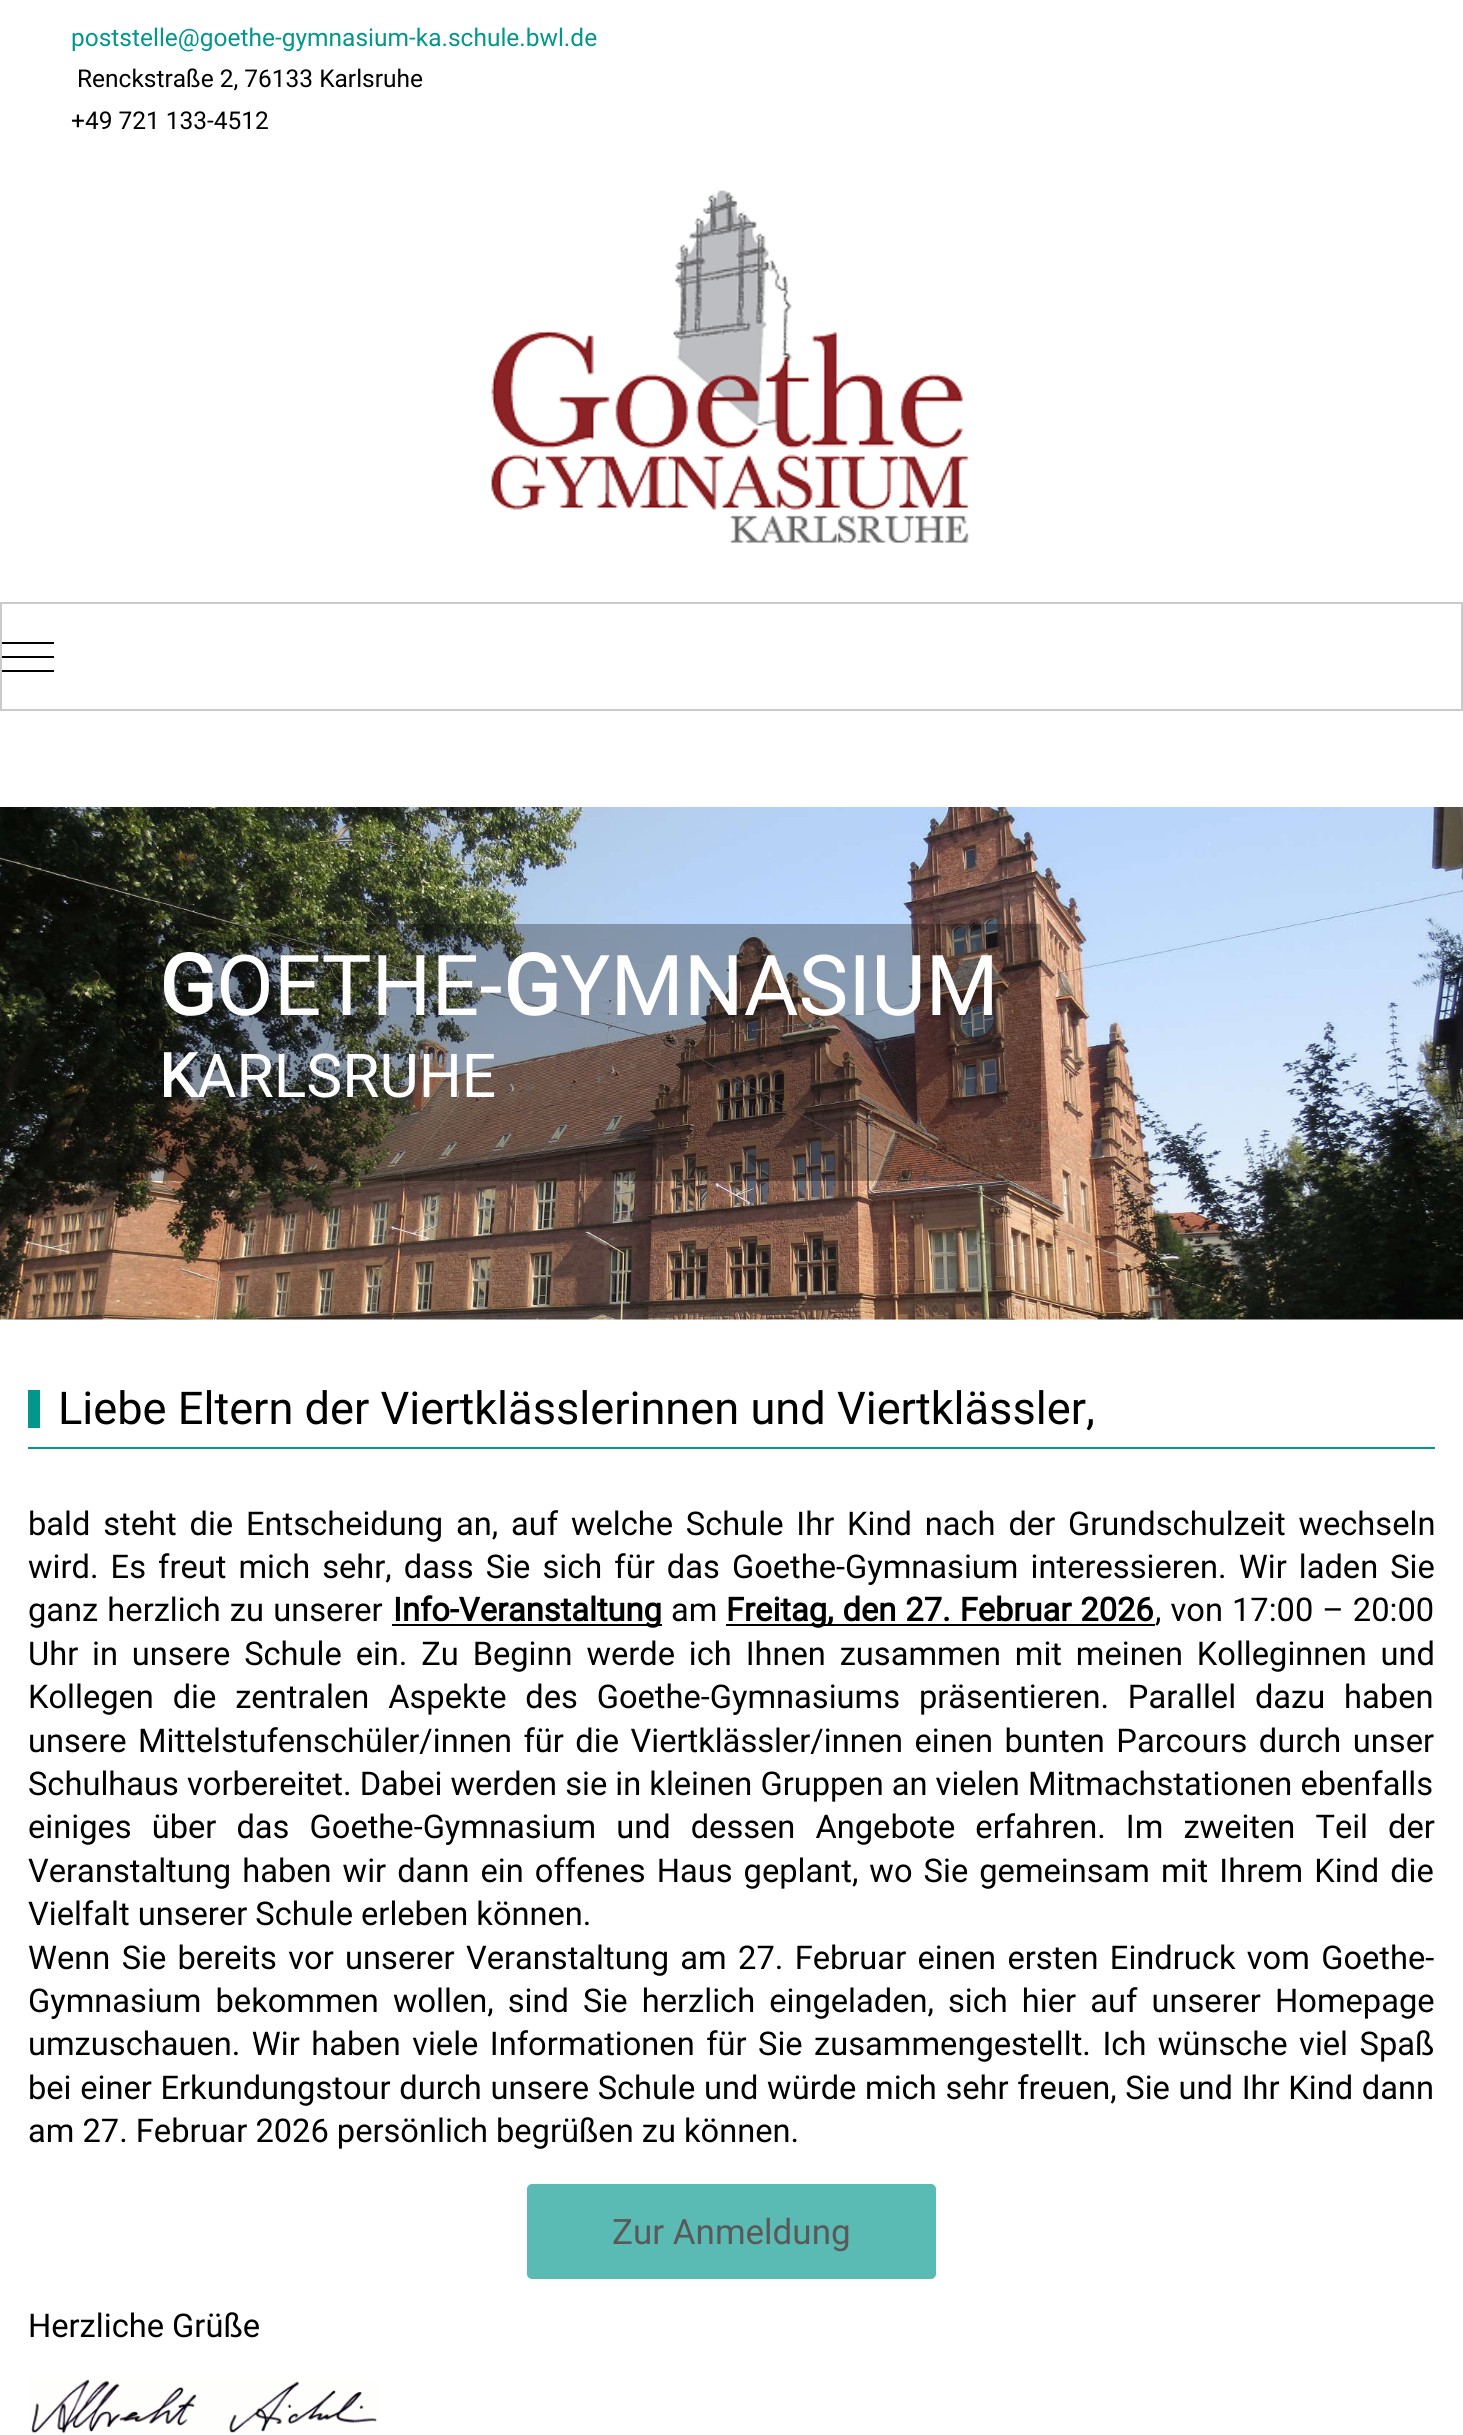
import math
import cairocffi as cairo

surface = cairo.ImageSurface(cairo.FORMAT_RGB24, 1463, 2435)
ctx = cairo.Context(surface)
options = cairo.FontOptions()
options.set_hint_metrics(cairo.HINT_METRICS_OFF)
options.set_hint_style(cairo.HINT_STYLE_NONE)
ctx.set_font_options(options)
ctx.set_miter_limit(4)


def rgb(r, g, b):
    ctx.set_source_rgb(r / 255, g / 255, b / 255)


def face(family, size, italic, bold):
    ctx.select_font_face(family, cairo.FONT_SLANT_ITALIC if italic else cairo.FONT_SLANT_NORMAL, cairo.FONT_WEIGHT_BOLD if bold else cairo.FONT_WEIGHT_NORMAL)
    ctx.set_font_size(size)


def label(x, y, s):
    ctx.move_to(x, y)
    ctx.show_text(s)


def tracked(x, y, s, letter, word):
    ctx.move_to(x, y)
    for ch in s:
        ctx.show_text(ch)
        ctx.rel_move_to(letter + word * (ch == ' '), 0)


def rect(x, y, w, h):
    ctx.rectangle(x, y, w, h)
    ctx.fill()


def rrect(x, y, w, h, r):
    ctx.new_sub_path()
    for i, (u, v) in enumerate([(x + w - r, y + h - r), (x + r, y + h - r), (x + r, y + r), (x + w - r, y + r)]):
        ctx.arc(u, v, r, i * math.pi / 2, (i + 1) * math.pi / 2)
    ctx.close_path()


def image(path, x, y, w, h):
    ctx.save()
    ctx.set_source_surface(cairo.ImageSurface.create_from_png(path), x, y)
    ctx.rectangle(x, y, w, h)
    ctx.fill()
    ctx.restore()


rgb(255, 255, 255)
ctx.paint()
face('Roboto', 24.5, 0, 0)
rgb(1, 151, 140)
label(71, 46, 'poststelle@goethe-gymnasium-ka.schule.bwl.de')
rgb(0, 0, 0)
label(77, 87, 'Renckstraße 2, 76133 Karlsruhe')
label(71, 129, '+49 721 133-4512')
image('image0.png', 491, 190, 478, 353)
ctx.rectangle(1, 603, 1461, 107)
rgb(202, 202, 202)
ctx.stroke()
rgb(0, 0, 0)
rect(2, 656, 52, 2)
rect(2, 642, 52, 2)
rect(2, 670, 52, 2)
image('image1.png', 0, 807, 1463, 513)
ctx.set_source_rgba(0, 0, 0, 0.3)
rect(117, 924, 924, 257)
face('Roboto', 84, 0, 1)
rgb(255, 255, 255)
label(159, 1015, 'G')
face('Roboto', 84, 0, 0)
label(216, 1015, 'OETHE-')
face('Roboto', 84, 0, 1)
label(503, 1015, 'G')
face('Roboto', 84, 0, 0)
label(560, 1015, 'YMNASIUM')
face('Roboto', 60.5, 0, 1)
label(159, 1097, 'K')
face('Roboto', 60.5, 0, 0)
label(197, 1097, 'ARLSRUHE')
rgb(1, 151, 140)
rect(28, 1447, 1407, 2)
rect(28, 1390, 12, 38)
face('Roboto', 45.2, 0, 0)
rgb(0, 0, 0)
label(58, 1424, 'Liebe Eltern der Viertklässlerinnen und Viertklässler,')
face('Roboto', 32.65, 0, 0)
tracked(28, 1535, 'bald steht die Entscheidung an, auf welche Schule Ihr Kind nach der Grundschulzeit wechseln', 0, 4.75)
tracked(28, 1578, 'wird. Es freut mich sehr, dass Sie sich für das Goethe-Gymnasium interessieren. Wir laden Sie', 0, 4)
tracked(28, 1621, 'ganz herzlich zu unserer', 0, 1)
rect(392, 1624, 270, 2)
face('Roboto', 32.65, 0, 1)
label(393, 1621, 'Info-Veranstaltung')
face('Roboto', 32.65, 0, 0)
label(671, 1621, 'am')
rect(726, 1624, 429, 2)
face('Roboto', 32.65, 0, 1)
tracked(726, 1621, 'Freitag, den 27. Februar 2026', 0, 1)
face('Roboto', 32.65, 0, 0)
tracked(1155, 1621, ', von 17:00 – 20:00', 0, 1)
tracked(28, 1665, 'Uhr in unsere Schule ein. Zu Beginn werde ich Ihnen zusammen mit meinen Kolleginnen und', 0, 5.75)
tracked(28, 1708, 'Kollegen die zentralen Aspekte des Goethe-Gymnasiums präsentieren. Parallel dazu haben', 0, 10.75)
tracked(28, 1752, 'unsere Mittelstufenschüler/innen für die Viertklässler/innen einen bunten Parcours durch unser', 0, 3.4)
label(28, 1795, 'Schulhaus vorbereitet. Dabei werden sie in kleinen Gruppen an vielen Mitmachstationen ebenfalls')
tracked(28, 1838, 'einiges über das Goethe-Gymnasium und dessen Angebote erfahren. Im zweiten Teil der', 0, 12)
tracked(28, 1882, 'Veranstaltung haben wir dann ein offenes Haus geplant, wo Sie gemeinsam mit Ihrem Kind die', 0, 3)
label(28, 1925, 'Vielfalt unserer Schule erleben können.')
tracked(28, 1969, 'Wenn Sie bereits vor unserer Veranstaltung am 27. Februar einen ersten Eindruck vom Goethe-', 0, 3.25)
tracked(28, 2012, 'Gymnasium bekommen wollen, sind Sie herzlich eingeladen, sich hier auf unserer Homepage', 0, 6)
tracked(28, 2055, 'umzuschauen. Wir haben viele Informationen für Sie zusammengestellt. Ich wünsche viel Spaß', 0, 3.4)
tracked(28, 2099, 'bei einer Erkundungstour durch unsere Schule und würde mich sehr freuen, Sie und Ihr Kind dann', 0, 0.6)
label(28, 2142, 'am 27. Februar 2026 persönlich begrüßen zu können.')
rgb(90, 187, 180)
rrect(528, 2185, 407, 93, 4)
ctx.fill_preserve()
ctx.stroke()
face('Roboto', 35, 0, 0)
rgb(89, 89, 89)
label(612, 2244, 'Zur Anmeldung')
face('Roboto', 32.65, 0, 0)
rgb(0, 0, 0)
label(28, 2337, 'Herzliche Grüße')
image('image2.png', 31, 2379, 346, 55)
surface.write_to_png('render.png')
